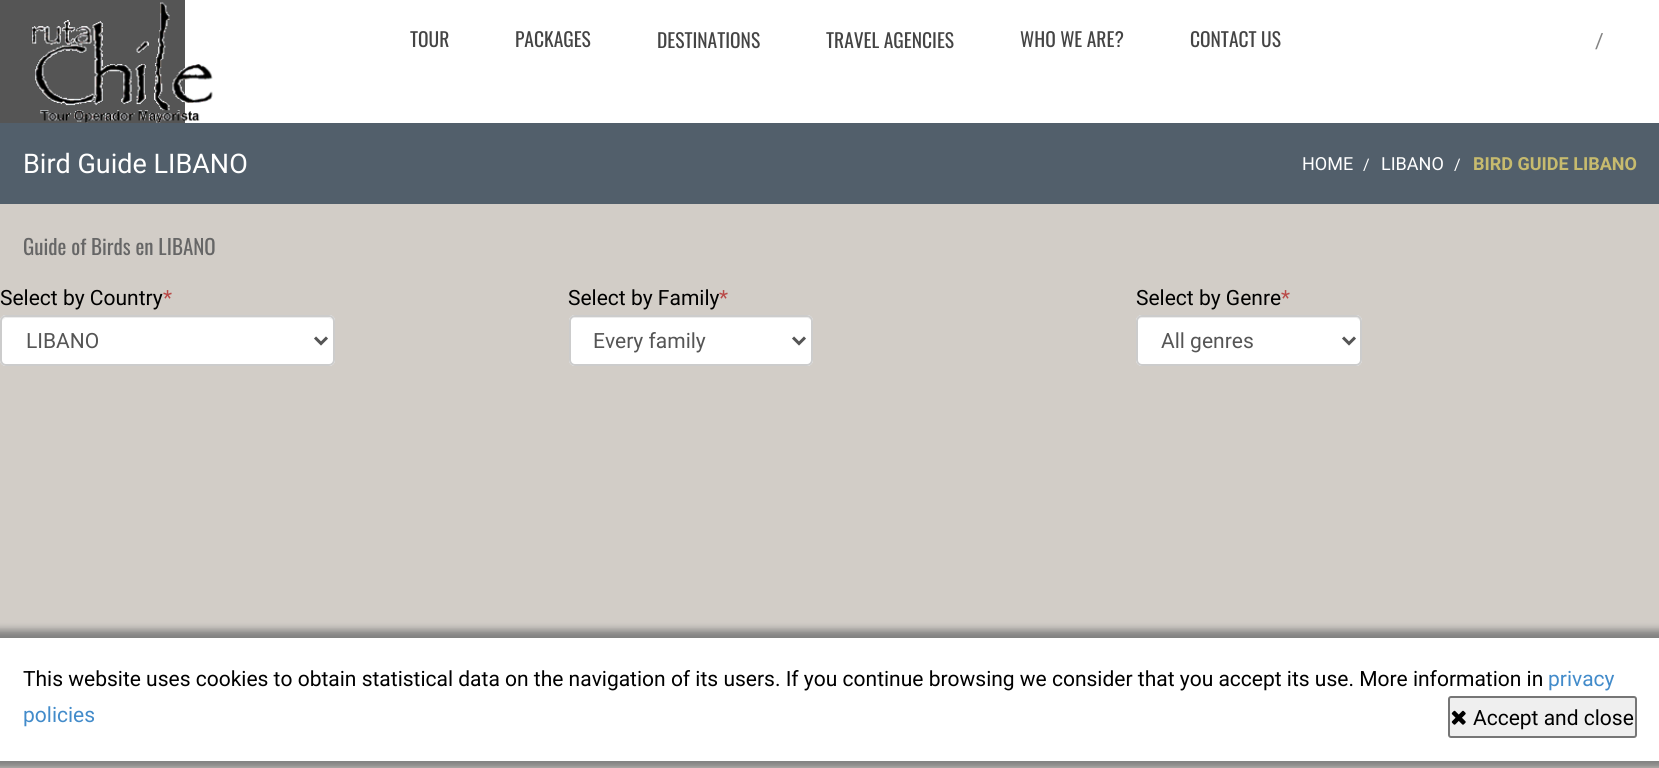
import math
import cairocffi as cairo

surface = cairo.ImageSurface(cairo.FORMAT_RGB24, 1659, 768)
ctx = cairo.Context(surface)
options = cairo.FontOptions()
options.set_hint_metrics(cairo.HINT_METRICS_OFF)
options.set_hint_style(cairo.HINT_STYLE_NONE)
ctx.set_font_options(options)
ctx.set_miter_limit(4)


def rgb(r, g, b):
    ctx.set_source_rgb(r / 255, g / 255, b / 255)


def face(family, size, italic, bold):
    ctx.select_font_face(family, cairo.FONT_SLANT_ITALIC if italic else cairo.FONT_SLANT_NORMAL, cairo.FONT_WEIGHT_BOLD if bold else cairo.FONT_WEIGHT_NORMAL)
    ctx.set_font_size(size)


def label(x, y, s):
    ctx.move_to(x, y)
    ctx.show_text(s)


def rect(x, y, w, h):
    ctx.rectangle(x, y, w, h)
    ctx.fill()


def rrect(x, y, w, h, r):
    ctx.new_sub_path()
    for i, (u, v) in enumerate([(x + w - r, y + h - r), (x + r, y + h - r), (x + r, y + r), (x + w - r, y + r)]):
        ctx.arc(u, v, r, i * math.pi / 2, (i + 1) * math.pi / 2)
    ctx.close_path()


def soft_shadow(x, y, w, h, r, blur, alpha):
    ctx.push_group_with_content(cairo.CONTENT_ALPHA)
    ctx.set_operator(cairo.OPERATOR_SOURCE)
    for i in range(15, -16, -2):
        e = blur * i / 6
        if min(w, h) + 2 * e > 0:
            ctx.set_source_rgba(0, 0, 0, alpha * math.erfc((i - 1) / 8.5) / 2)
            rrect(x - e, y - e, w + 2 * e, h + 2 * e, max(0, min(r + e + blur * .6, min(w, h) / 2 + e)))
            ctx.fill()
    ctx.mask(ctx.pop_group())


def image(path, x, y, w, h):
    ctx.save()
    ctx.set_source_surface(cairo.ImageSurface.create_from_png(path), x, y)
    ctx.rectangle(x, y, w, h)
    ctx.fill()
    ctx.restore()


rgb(255, 255, 255)
ctx.paint()
rgb(85, 85, 85)
rect(0, 0, 185, 123)
image('image0.png', 32, 2, 181, 121)
face('Oswald', 19.5, 0, 0)
rgb(68, 68, 68)
label(410, 47, 'TOUR')
label(515, 47, 'PACKAGES')
label(657, 48, 'DESTINATIONS')
label(826, 48, 'TRAVEL AGENCIES')
label(1020, 47, 'WHO WE ARE?')
label(1190, 47, 'CONTACT US')
face('Roboto', 21, 0, 0)
rgb(132, 132, 132)
label(1595, 48, '/')
rgb(82, 95, 107)
rect(0, 123, 1659, 81)
face('Roboto', 27, 0, 0)
rgb(255, 255, 255)
label(23, 173, 'Bird Guide LIBANO')
face('Roboto', 18, 0, 0)
label(1302, 170, 'HOME')
face('Roboto', 16, 0, 0)
label(1363, 170, '/')
face('Roboto', 18, 0, 0)
label(1381, 170, 'LIBANO')
face('Roboto', 16, 0, 0)
label(1454, 170, '/')
face('Roboto', 18, 0, 1)
rgb(199, 187, 110)
label(1473, 170, 'BIRD GUIDE LIBANO')
rgb(210, 205, 199)
rect(0, 204, 1659, 564)
face('Oswald', 21, 0, 0)
rgb(102, 102, 102)
label(23, 255, 'Guide of Birds en LIBANO')
face('Roboto', 21, 0, 0)
rgb(0, 0, 0)
label(0, 305, 'Select by Country')
rgb(185, 74, 72)
label(163, 305, '*')
rgb(255, 255, 255)
rrect(0, 315, 335, 51, 6)
ctx.fill()
rgb(236, 236, 236)
ctx.new_path()
ctx.move_to(6, 318)
ctx.line_to(328, 318)
ctx.curve_to(331, 318, 333, 320, 333, 322)
ctx.curve_to(333, 319, 331, 317, 328, 317)
ctx.line_to(7, 317)
ctx.curve_to(4, 317, 2, 319, 2, 322)
ctx.curve_to(2, 320, 4, 318, 6, 318)
ctx.close_path()
ctx.fill()
rrect(1, 316, 333, 49, 5)
rgb(204, 204, 204)
ctx.stroke()
ctx.new_path()
ctx.move_to(315, 337.5)
ctx.line_to(321, 343.5)
ctx.line_to(327, 337.5)
rgb(85, 85, 85)
ctx.set_line_width(3)
ctx.stroke()
label(26, 348, 'LIBANO')
rgb(0, 0, 0)
label(568, 305, 'Select by Family')
rgb(185, 74, 72)
label(719, 305, '*')
rgb(255, 255, 255)
rrect(569, 315, 244, 51, 6)
ctx.fill()
rgb(236, 236, 236)
ctx.new_path()
ctx.move_to(574, 318)
ctx.line_to(807, 318)
ctx.curve_to(809, 318, 812, 320, 812, 322)
ctx.curve_to(812, 319, 810, 317, 807, 317)
ctx.line_to(575, 317)
ctx.curve_to(572, 317, 570, 319, 570, 322)
ctx.curve_to(570, 320, 572, 318, 574, 318)
ctx.close_path()
ctx.fill()
rrect(570, 316, 242, 49, 5)
rgb(204, 204, 204)
ctx.set_line_width(2)
ctx.stroke()
ctx.new_path()
ctx.move_to(793, 337.5)
ctx.line_to(799, 343.5)
ctx.line_to(805, 337.5)
rgb(85, 85, 85)
ctx.set_line_width(3)
ctx.stroke()
label(593, 348, 'Every family')
rgb(0, 0, 0)
label(1136, 305, 'Select by Genre')
rgb(185, 74, 72)
label(1281, 305, '*')
rgb(255, 255, 255)
rrect(1136, 315, 226, 51, 6)
ctx.fill()
rgb(236, 236, 236)
ctx.new_path()
ctx.move_to(1142, 318)
ctx.line_to(1356, 318)
ctx.curve_to(1358, 318, 1360, 320, 1360, 322)
ctx.line_to(1360, 363)
ctx.curve_to(1361, 362, 1361, 361, 1361, 360)
ctx.line_to(1361, 322)
ctx.curve_to(1361, 319, 1359, 317, 1356, 317)
ctx.line_to(1142, 317)
ctx.curve_to(1139, 317, 1137, 319, 1137, 322)
ctx.curve_to(1137, 320, 1139, 318, 1142, 318)
ctx.close_path()
ctx.fill()
rrect(1137, 316, 224, 49, 5)
rgb(204, 204, 204)
ctx.set_line_width(2)
ctx.stroke()
ctx.new_path()
ctx.move_to(1343, 337.5)
ctx.line_to(1349, 343.5)
ctx.line_to(1355, 337.5)
rgb(85, 85, 85)
ctx.set_line_width(3)
ctx.stroke()
label(1161, 348, 'All genres')
rgb(128, 128, 128)
soft_shadow(-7, 630, 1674, 138, 0, 4, 1)
rgb(255, 255, 255)
rect(0, 638, 1659, 123)
rgb(0, 0, 0)
label(23, 686, 'This website uses cookies to obtain statistical data on the navigation of its users. If you continue browsing we consider that you accept its use. More information in')
rgb(66, 139, 202)
label(1548, 686, 'privacy')
label(23, 722, 'policies')
rgb(239, 239, 239)
rrect(1449, 697, 187, 40, 2)
ctx.fill_preserve()
rgb(118, 118, 118)
ctx.set_line_width(2)
ctx.stroke()
image('image1.png', 1451, 710, 15, 15)
rgb(0, 0, 0)
label(1473, 725, 'Accept and close')
surface.write_to_png('render.png')
